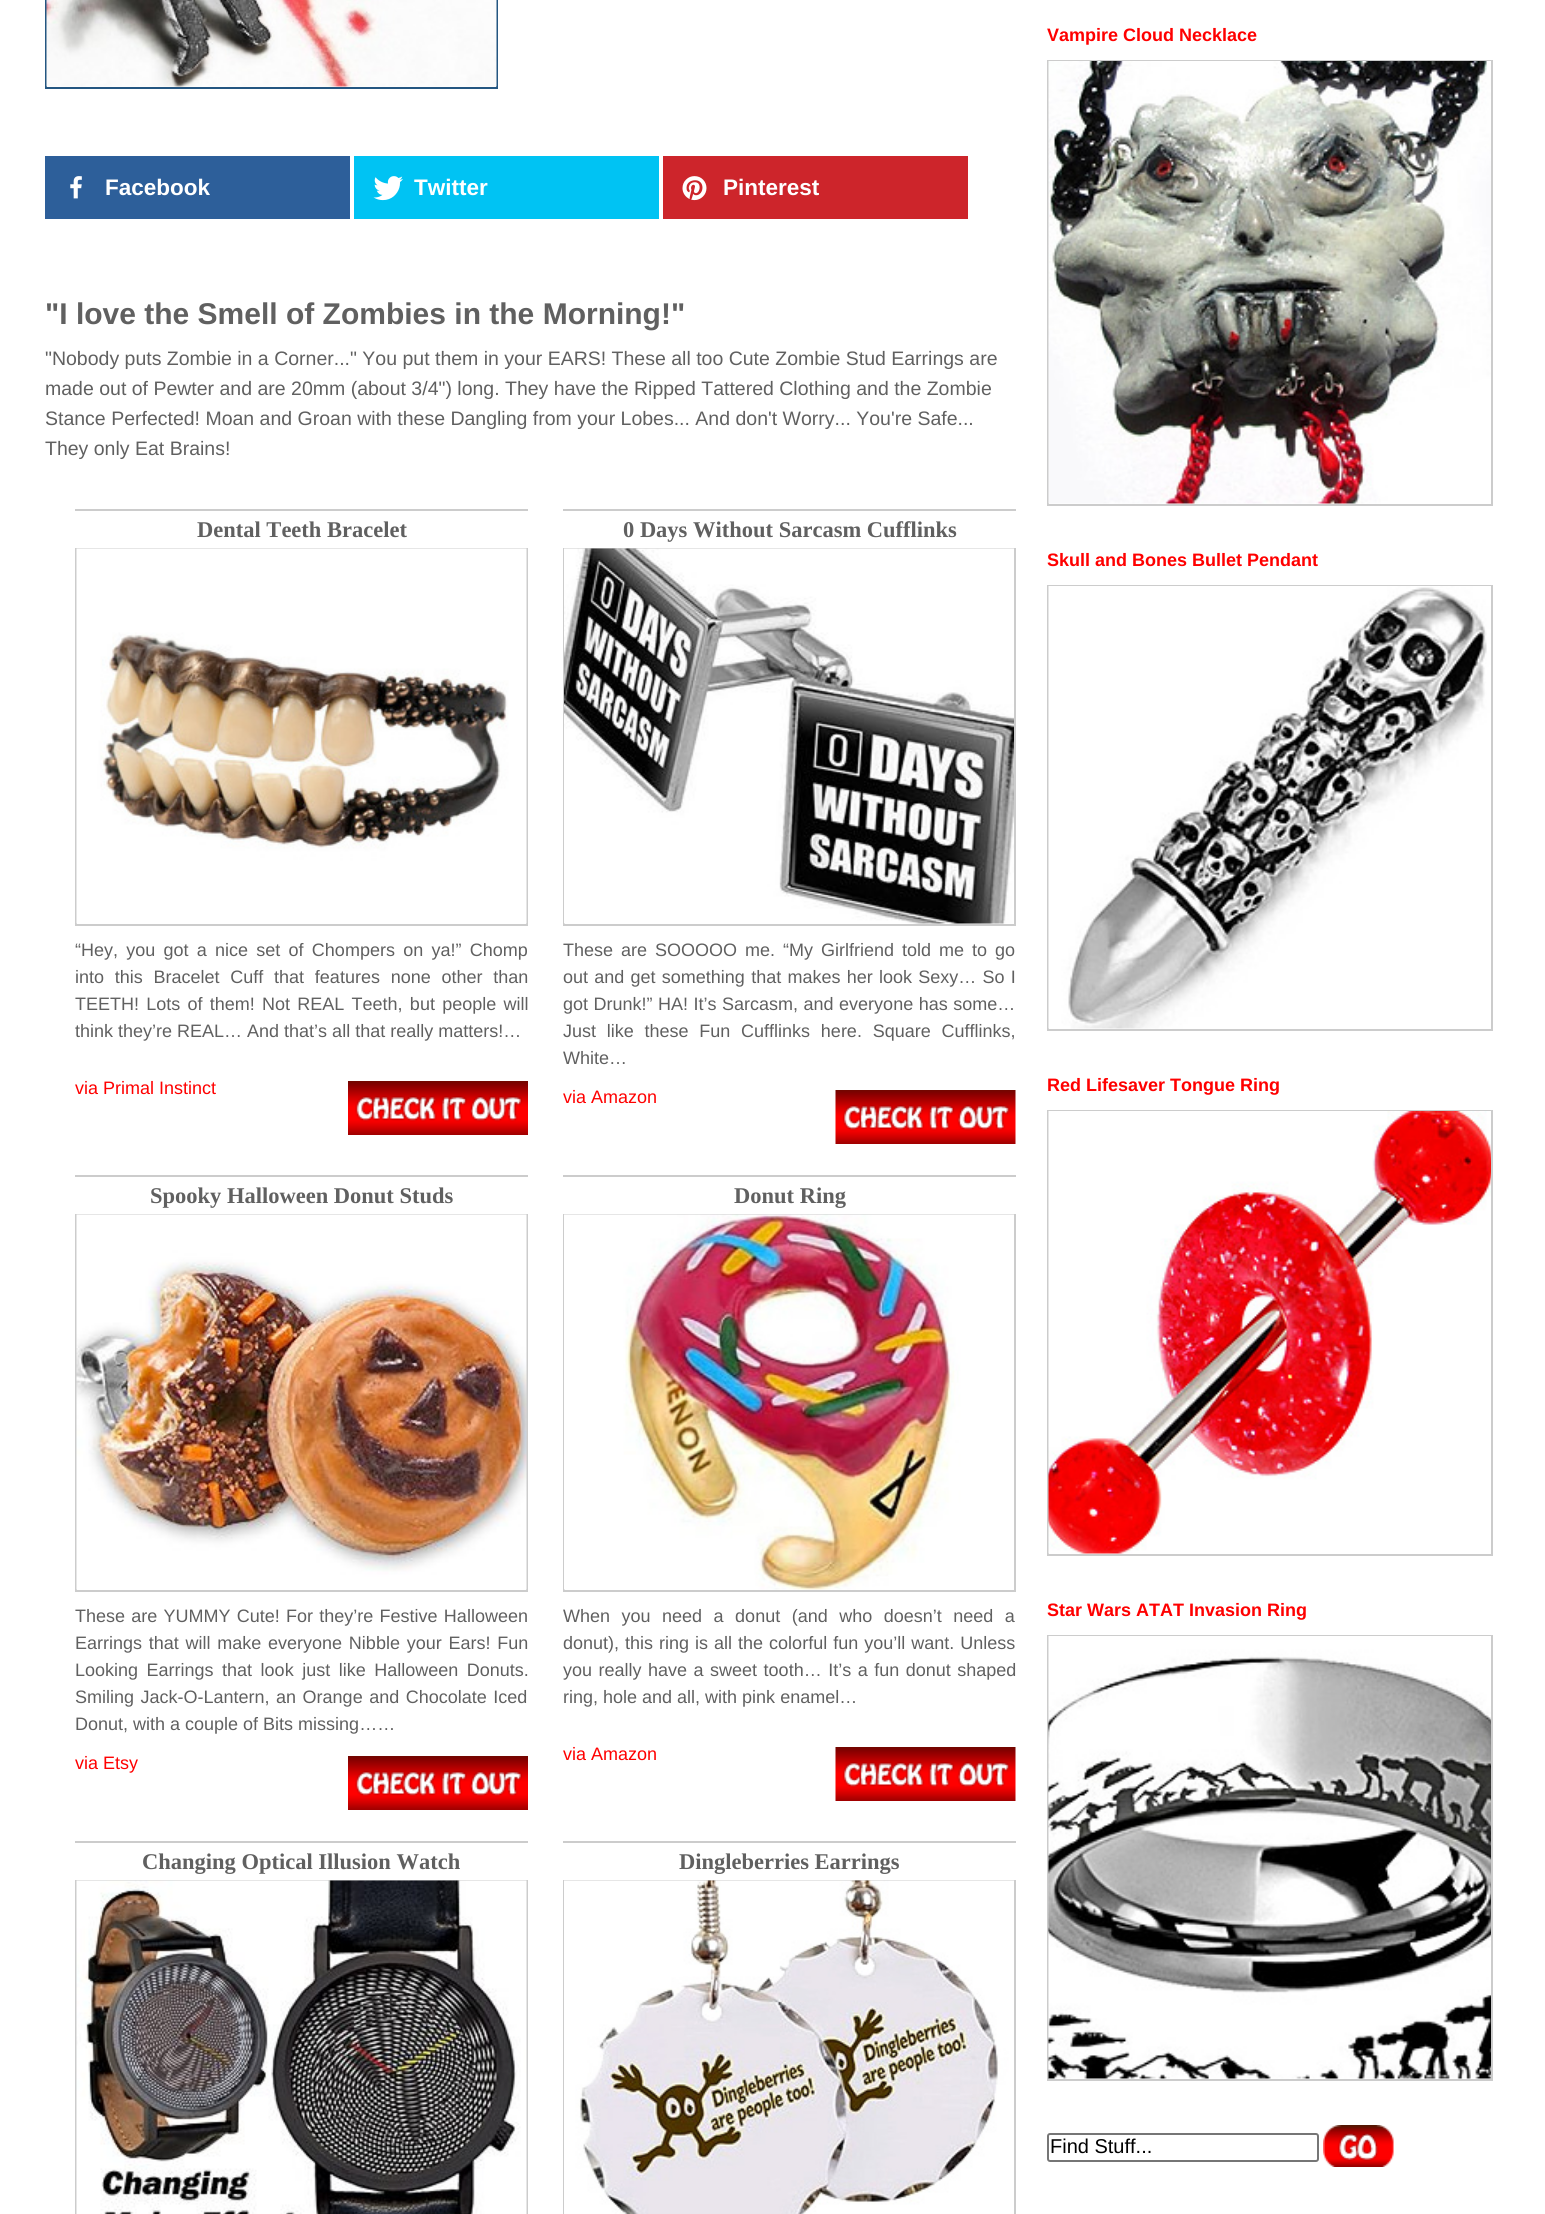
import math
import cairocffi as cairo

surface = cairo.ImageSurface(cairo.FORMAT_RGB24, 1545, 2214)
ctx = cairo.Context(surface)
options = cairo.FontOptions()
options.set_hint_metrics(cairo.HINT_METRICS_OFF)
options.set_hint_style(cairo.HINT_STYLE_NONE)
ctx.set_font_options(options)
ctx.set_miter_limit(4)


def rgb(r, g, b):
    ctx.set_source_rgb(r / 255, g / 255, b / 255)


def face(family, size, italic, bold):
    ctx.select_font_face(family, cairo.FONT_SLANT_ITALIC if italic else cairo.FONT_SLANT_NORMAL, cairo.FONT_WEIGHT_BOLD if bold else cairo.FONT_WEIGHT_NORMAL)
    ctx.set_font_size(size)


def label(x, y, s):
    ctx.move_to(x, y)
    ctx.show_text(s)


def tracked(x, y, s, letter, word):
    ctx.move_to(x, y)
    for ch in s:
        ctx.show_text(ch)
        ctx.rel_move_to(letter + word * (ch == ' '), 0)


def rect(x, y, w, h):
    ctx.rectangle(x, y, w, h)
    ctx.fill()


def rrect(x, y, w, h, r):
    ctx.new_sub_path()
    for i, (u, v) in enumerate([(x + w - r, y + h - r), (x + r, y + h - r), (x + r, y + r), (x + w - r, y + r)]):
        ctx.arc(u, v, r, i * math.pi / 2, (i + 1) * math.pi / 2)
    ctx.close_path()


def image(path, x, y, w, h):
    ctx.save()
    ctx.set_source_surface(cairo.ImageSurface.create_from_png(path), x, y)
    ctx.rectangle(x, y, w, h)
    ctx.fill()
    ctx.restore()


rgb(255, 255, 255)
ctx.paint()
ctx.rectangle(46, -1, 451, 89)
rgb(36, 86, 129)
ctx.stroke()
image('image0.png', 46, 0, 451, 87)
rgb(45, 95, 154)
rect(45, 156, 305, 63)
image('image1.png', 70, 176, 12, 23)
face('Liberation Sans', 22.5, 0, 1)
rgb(255, 255, 255)
label(105, 195, 'Facebook')
rgb(0, 195, 243)
rect(354, 156, 305, 63)
image('image2.png', 373, 176, 30, 25)
rgb(255, 255, 255)
label(414, 195, 'Twitter')
rgb(205, 37, 43)
rect(663, 156, 305, 63)
image('image3.png', 682, 176, 25, 25)
rgb(255, 255, 255)
label(723, 195, 'Pinterest')
face('Liberation Sans', 30, 0, 1)
rgb(96, 96, 96)
label(45, 324, '"I love the Smell of Zombies in the Morning!"')
face('Liberation Sans', 19.5, 0, 0)
label(45, 365, '"Nobody puts Zombie in a Corner..." You put them in your EARS! These all too Cute Zombie Stud Earrings are')
label(45, 395, 'made out of Pewter and are 20mm (about 3/4") long. They have the Ripped Tattered Clothing and the Zombie')
label(45, 425, 'Stance Perfected! Moan and Groan with these Dangling from your Lobes... And don\'t Worry... You\'re Safe...')
label(45, 455, 'They only Eat Brains!')
rgb(204, 204, 204)
rect(75, 509, 453, 2)
face('Liberation Serif', 22.5, 0, 1)
rgb(96, 96, 96)
label(197, 537, 'Dental Teeth Bracelet')
ctx.rectangle(76, 549, 451, 376)
rgb(204, 204, 204)
ctx.stroke()
image('image4.png', 76, 548, 451, 376)
face('Liberation Sans', 18, 0, 0)
rgb(96, 96, 96)
tracked(75, 956, '“Hey, you got a nice set of Chompers on ya!” Chomp', 0, 3.25)
tracked(75, 983, 'into this Bracelet Cuff that features none other than', 0, 5.75)
tracked(75, 1010, 'TEETH! Lots of them! Not REAL Teeth, but people will', 0, 2.25)
label(75, 1037, 'think they’re REAL… And that’s all that really matters!…')
rgb(255, 0, 0)
label(75, 1094, 'via Primal Instinct')
image('image5.png', 348, 1081, 180, 54)
rgb(204, 204, 204)
rect(563, 509, 453, 2)
face('Liberation Serif', 22.5, 0, 1)
rgb(96, 96, 96)
label(623, 537, '0 Days Without Sarcasm Cufflinks')
ctx.rectangle(564, 549, 451, 376)
rgb(204, 204, 204)
ctx.stroke()
image('image6.png', 564, 548, 450, 376)
face('Liberation Sans', 18, 0, 0)
rgb(96, 96, 96)
tracked(563, 956, 'These are SOOOOO me. “My Girlfriend told me to go', 0, 3)
tracked(563, 983, 'out and get something that makes her look Sexy… So I', 0, 1.25)
tracked(563, 1010, 'got Drunk!” HA! It’s Sarcasm, and everyone has some…', 0, 0.5)
tracked(563, 1037, 'Just like these Fun Cufflinks here. Square Cufflinks,', 0, 5.75)
label(563, 1064, 'White…')
rgb(255, 0, 0)
label(563, 1103, 'via Amazon')
image('image7.png', 835, 1090, 181, 54)
rgb(204, 204, 204)
rect(75, 1175, 453, 2)
face('Liberation Serif', 22.5, 0, 1)
rgb(96, 96, 96)
label(150, 1203, 'Spooky Halloween Donut Studs')
ctx.rectangle(76, 1215, 451, 376)
rgb(204, 204, 204)
ctx.stroke()
image('image8.png', 76, 1214, 451, 376)
face('Liberation Sans', 18, 0, 0)
rgb(96, 96, 96)
tracked(75, 1622, 'These are YUMMY Cute! For they’re Festive Halloween', 0, 1.25)
tracked(75, 1649, 'Earrings that will make everyone Nibble your Ears! Fun', 0, 1.75)
tracked(75, 1676, 'Looking Earrings that look just like Halloween Donuts.', 0, 3.5)
tracked(75, 1703, 'Smiling Jack-O-Lantern, an Orange and Chocolate Iced', 0, 1.5)
label(75, 1730, 'Donut, with a couple of Bits missing……')
rgb(255, 0, 0)
label(75, 1769, 'via Etsy')
image('image5.png', 348, 1756, 180, 54)
rgb(204, 204, 204)
rect(563, 1175, 453, 2)
face('Liberation Serif', 22.5, 0, 1)
rgb(96, 96, 96)
label(734, 1203, 'Donut Ring')
ctx.rectangle(564, 1215, 451, 376)
rgb(204, 204, 204)
ctx.stroke()
image('image9.png', 564, 1214, 450, 376)
face('Liberation Sans', 18, 0, 0)
rgb(96, 96, 96)
tracked(563, 1622, 'When you need a donut (and who doesn’t need a', 0, 6.5)
tracked(563, 1649, 'donut), this ring is all the colorful fun you’ll want. Unless', 0, 1)
tracked(563, 1676, 'you really have a sweet tooth… It’s a fun donut shaped', 0, 1.5)
label(563, 1703, 'ring, hole and all, with pink enamel…')
rgb(255, 0, 0)
label(563, 1760, 'via Amazon')
image('image7.png', 835, 1747, 181, 54)
rgb(204, 204, 204)
rect(75, 1841, 453, 2)
face('Liberation Serif', 22.5, 0, 1)
rgb(96, 96, 96)
label(142, 1869, 'Changing Optical Illusion Watch')
ctx.rectangle(76, 1881, 451, 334)
rgb(204, 204, 204)
ctx.stroke()
image('image10.png', 76, 1880, 451, 334)
rect(563, 1841, 453, 2)
rgb(96, 96, 96)
label(679, 1869, 'Dingleberries Earrings')
ctx.rectangle(564, 1881, 451, 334)
rgb(204, 204, 204)
ctx.stroke()
image('image11.png', 564, 1880, 450, 334)
face('Liberation Sans', 18, 0, 1)
rgb(255, 0, 0)
label(1047, 41, 'Vampire Cloud Necklace')
ctx.rectangle(1048, 61, 444, 444)
rgb(204, 204, 204)
ctx.stroke()
image('image12.png', 1048, 61, 443, 443)
rgb(255, 0, 0)
label(1047, 566, 'Skull and Bones Bullet Pendant')
ctx.rectangle(1048, 586, 444, 444)
rgb(204, 204, 204)
ctx.stroke()
image('image13.png', 1048, 586, 443, 443)
rgb(255, 0, 0)
label(1047, 1091, 'Red Lifesaver Tongue Ring')
ctx.rectangle(1048, 1111, 444, 444)
rgb(204, 204, 204)
ctx.stroke()
image('image14.png', 1048, 1111, 443, 443)
rgb(255, 0, 0)
label(1047, 1616, 'Star Wars ATAT Invasion Ring')
ctx.rectangle(1048, 1636, 444, 444)
rgb(204, 204, 204)
ctx.stroke()
image('image15.png', 1048, 1636, 443, 443)
rrect(1048, 2134, 270, 27, 2)
rgb(118, 118, 118)
ctx.stroke()
face('Liberation Sans', 20, 0, 0)
rgb(0, 0, 0)
label(1050, 2153, 'Find Stuff...')
image('image16.png', 1323, 2125, 71, 42)
surface.write_to_png('render.png')
